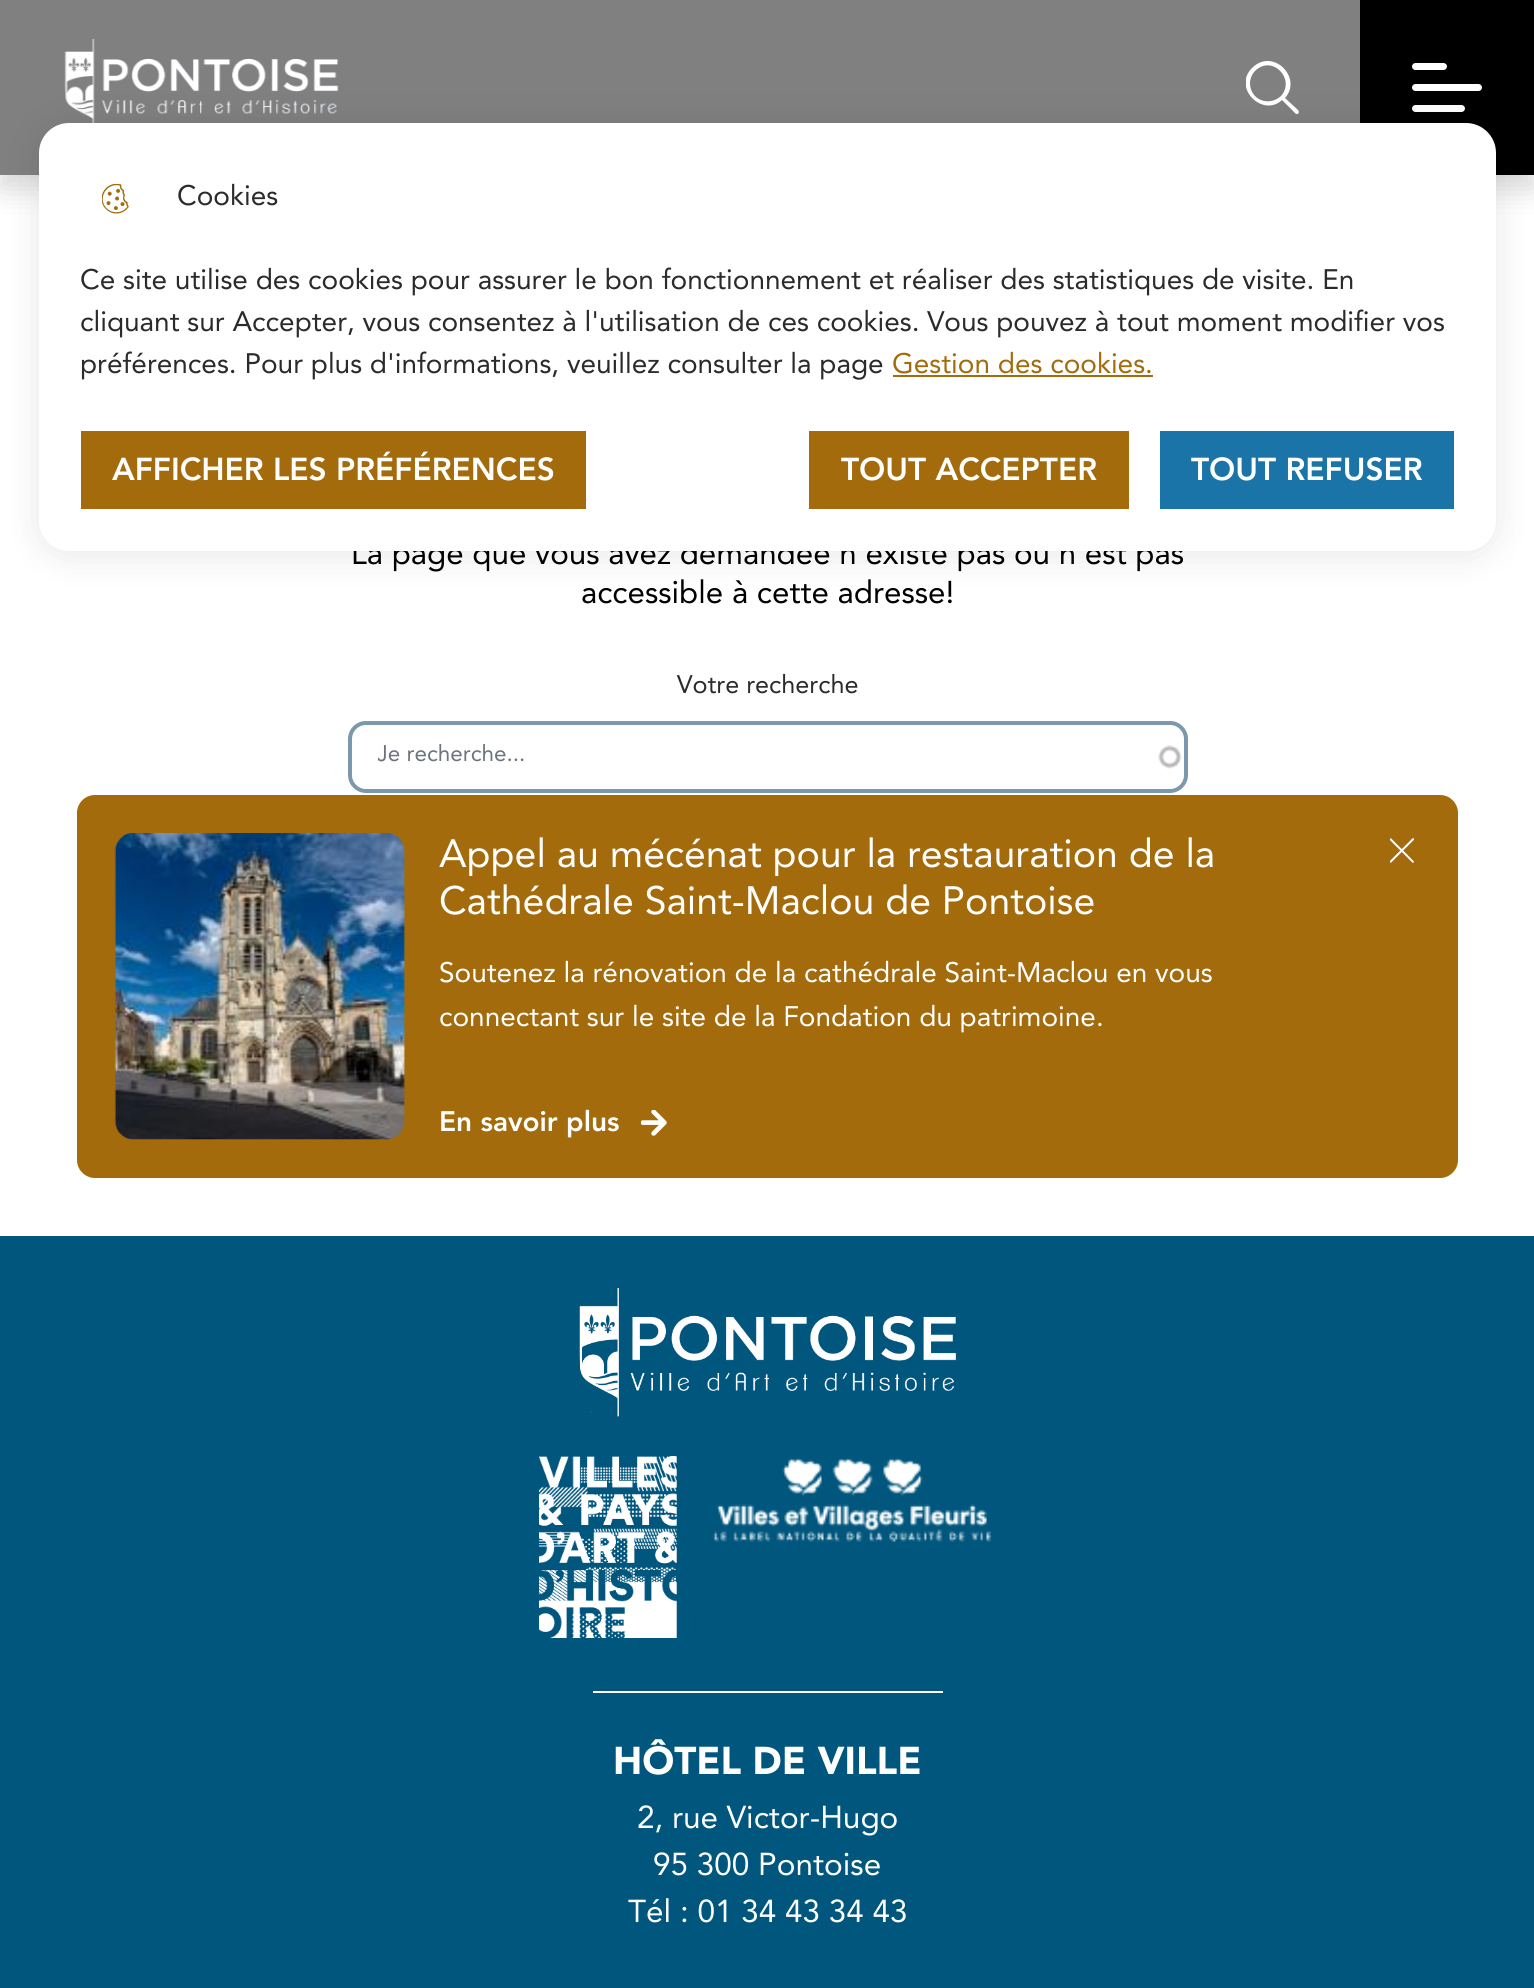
import math
import cairocffi as cairo

surface = cairo.ImageSurface(cairo.FORMAT_RGB24, 1534, 1988)
ctx = cairo.Context(surface)
options = cairo.FontOptions()
options.set_hint_metrics(cairo.HINT_METRICS_OFF)
options.set_hint_style(cairo.HINT_STYLE_NONE)
ctx.set_font_options(options)
ctx.set_miter_limit(4)


def rgb(r, g, b):
    ctx.set_source_rgb(r / 255, g / 255, b / 255)


def face(family, size, italic, bold):
    ctx.select_font_face(family, cairo.FONT_SLANT_ITALIC if italic else cairo.FONT_SLANT_NORMAL, cairo.FONT_WEIGHT_BOLD if bold else cairo.FONT_WEIGHT_NORMAL)
    ctx.set_font_size(size)


def label(x, y, s):
    ctx.move_to(x, y)
    ctx.show_text(s)


def rect(x, y, w, h):
    ctx.rectangle(x, y, w, h)
    ctx.fill()


def rrect(x, y, w, h, r):
    ctx.new_sub_path()
    for i, (u, v) in enumerate([(x + w - r, y + h - r), (x + r, y + h - r), (x + r, y + r), (x + w - r, y + r)]):
        ctx.arc(u, v, r, i * math.pi / 2, (i + 1) * math.pi / 2)
    ctx.close_path()


def soft_shadow(x, y, w, h, r, blur, alpha):
    ctx.push_group_with_content(cairo.CONTENT_ALPHA)
    ctx.set_operator(cairo.OPERATOR_SOURCE)
    for i in range(15, -16, -2):
        e = blur * i / 6
        if min(w, h) + 2 * e > 0:
            ctx.set_source_rgba(0, 0, 0, alpha * math.erfc((i - 1) / 8.5) / 2)
            rrect(x - e, y - e, w + 2 * e, h + 2 * e, max(0, min(r + e + blur * .6, min(w, h) / 2 + e)))
            ctx.fill()
    ctx.mask(ctx.pop_group())


def image(path, x, y, w, h):
    ctx.save()
    ctx.set_source_surface(cairo.ImageSurface.create_from_png(path), x, y)
    ctx.rectangle(x, y, w, h)
    ctx.fill()
    ctx.restore()


rgb(255, 255, 255)
ctx.paint()
rgb(0, 0, 0)
soft_shadow(0, 14, 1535, 175, 0, 14, 0.15)
rgb(128, 128, 128)
rect(0, 0, 1360, 175)
image('image1.png', 64, 39, 275, 84)
ctx.save()
ctx.rectangle(1246, 61, 53, 53)
ctx.clip()
rgb(255, 255, 255)
ctx.set_fill_rule(cairo.FILL_RULE_EVEN_ODD)
ctx.new_path()
ctx.move_to(1298, 110)
ctx.line_to(1285, 98)
ctx.curve_to(1303, 78, 1273, 47, 1252, 68)
ctx.curve_to(1232, 88, 1263, 118, 1282, 100)
ctx.line_to(1296, 114)
ctx.curve_to(1298, 115, 1300, 112, 1298, 110)
ctx.close_path()
ctx.move_to(1250, 83)
ctx.curve_to(1250, 79, 1252, 74, 1255, 71)
ctx.curve_to(1272, 54, 1296, 79, 1281, 96)
ctx.curve_to(1269, 107, 1250, 100, 1250, 83)
ctx.close_path()
ctx.fill()
ctx.restore()
rgb(0, 0, 0)
rect(1360, 0, 174, 175)
rgb(255, 255, 255)
rrect(1412, 84, 70, 7, 3.5)
ctx.fill()
rrect(1412, 105, 53, 7, 3.5)
ctx.fill()
rgb(0, 0, 0)
soft_shadow(39, 126, 1457, 429, 30, 17.5, 0.1)
face('Avenir', 31.35, 0, 0)
rgb(0, 0, 0)
label(351, 564, 'La page que vous avez demandée n\'existe pas ou n\'est pas')
rgb(255, 255, 255)
rrect(39, 123, 1457, 428, 30)
ctx.fill()
image('image0.png', 102, 184, 27, 30)
face('Avenir', 28, 0, 0)
rgb(43, 43, 43)
label(177, 205, 'Cookies')
label(80, 289, 'Ce site utilise des cookies pour assurer le bon fonctionnement et réaliser des statistiques de visite. En')
label(80, 331, 'cliquant sur Accepter, vous consentez à l\'utilisation de ces cookies. Vous pouvez à tout moment modifier vos')
label(80, 373, 'préférences. Pour plus d\'informations, veuillez consulter la page')
rgb(163, 107, 12)
label(892, 373, 'Gestion des cookies.')
rect(893, 375, 260, 2)
rect(81, 431, 505, 78)
face('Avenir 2 Black', 31.5, 0, 0)
rgb(255, 255, 255)
label(112, 480, 'AFFICHER LES PRÉFÉRENCES')
rgb(163, 107, 12)
rect(809, 431, 320, 78)
rgb(255, 255, 255)
label(841, 480, 'TOUT ACCEPTER')
rgb(26, 116, 167)
rect(1160, 431, 294, 78)
rgb(255, 255, 255)
label(1191, 480, 'TOUT REFUSER')
rrect(1412, 63, 35, 7, 3.5)
ctx.fill()
face('Avenir', 31.35, 0, 0)
rgb(0, 0, 0)
label(581, 603, 'accessible à cette adresse!')
face('Avenir', 25.25, 0, 0)
rgb(43, 43, 43)
label(677, 693, 'Votre recherche')
image('image2.png', 1158, 745, 24, 24)
rrect(350, 723, 836, 68, 16)
rgb(123, 152, 173)
ctx.set_line_width(4)
ctx.stroke()
ctx.save()
ctx.rectangle(378, 742, 781, 28)
ctx.clip()
face('Avenir', 22.5, 0, 0)
rgb(108, 117, 125)
label(377, 761, 'Je recherche...')
ctx.restore()
rgb(163, 107, 12)
rrect(79, 797, 1377, 379, 16)
ctx.fill_preserve()
ctx.stroke()
image('image3.png', 114, 833, 291, 307)
face('Avenir', 39.25, 0, 0)
rgb(255, 255, 255)
label(439, 867, 'Appel au mécénat pour la restauration de la')
label(439, 914, 'Cathédrale Saint-Maclou de Pontoise')
face('Avenir', 28, 0, 0)
label(439, 982, 'Soutenez la rénovation de la cathédrale Saint-Maclou en vous')
label(439, 1026, 'connectant sur le site de la Fondation du patrimoine.')
face('Avenir 2 Black', 28, 0, 0)
label(439, 1131, 'En savoir plus')
image('image4.png', 641, 1110, 26, 26)
image('image5.png', 1390, 838, 24, 25)
rgb(0, 86, 125)
rect(0, 1236, 1534, 752)
image('image6.png', 579, 1288, 378, 129)
image('image7.png', 539, 1456, 138, 182)
image('image8.png', 713, 1458, 279, 84)
rgb(255, 255, 255)
rect(593, 1691, 350, 2)
face('Avenir Black', 38.5, 0, 0)
label(613, 1774, 'HÔTEL DE VILLE')
face('Avenir', 31.5, 0, 0)
label(637, 1828, '2, rue Victor-Hugo')
label(653, 1875, '95 300 Pontoise')
label(628, 1922, 'Tél : 01 34 43 34 43')
surface.write_to_png('render.png')
